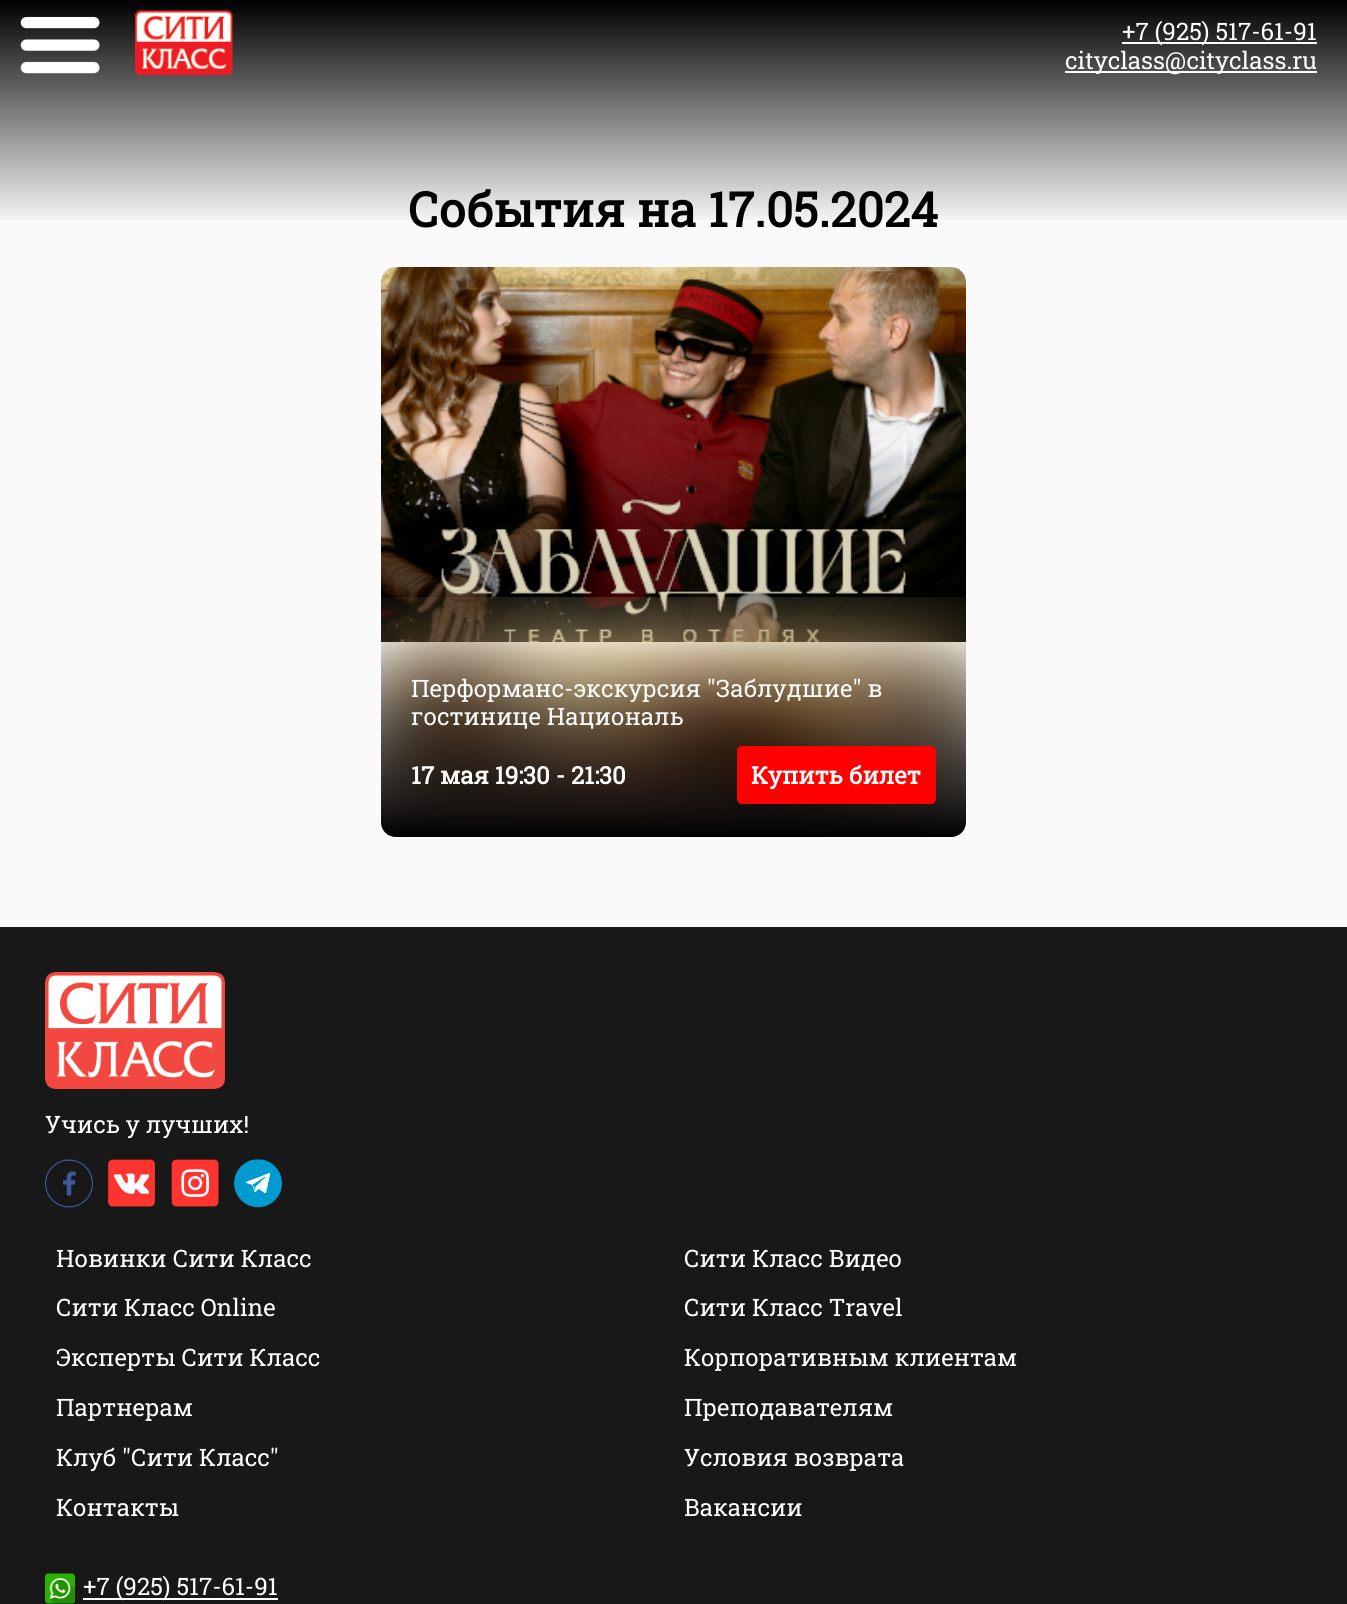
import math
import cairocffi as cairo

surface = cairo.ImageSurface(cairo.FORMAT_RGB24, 1347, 1604)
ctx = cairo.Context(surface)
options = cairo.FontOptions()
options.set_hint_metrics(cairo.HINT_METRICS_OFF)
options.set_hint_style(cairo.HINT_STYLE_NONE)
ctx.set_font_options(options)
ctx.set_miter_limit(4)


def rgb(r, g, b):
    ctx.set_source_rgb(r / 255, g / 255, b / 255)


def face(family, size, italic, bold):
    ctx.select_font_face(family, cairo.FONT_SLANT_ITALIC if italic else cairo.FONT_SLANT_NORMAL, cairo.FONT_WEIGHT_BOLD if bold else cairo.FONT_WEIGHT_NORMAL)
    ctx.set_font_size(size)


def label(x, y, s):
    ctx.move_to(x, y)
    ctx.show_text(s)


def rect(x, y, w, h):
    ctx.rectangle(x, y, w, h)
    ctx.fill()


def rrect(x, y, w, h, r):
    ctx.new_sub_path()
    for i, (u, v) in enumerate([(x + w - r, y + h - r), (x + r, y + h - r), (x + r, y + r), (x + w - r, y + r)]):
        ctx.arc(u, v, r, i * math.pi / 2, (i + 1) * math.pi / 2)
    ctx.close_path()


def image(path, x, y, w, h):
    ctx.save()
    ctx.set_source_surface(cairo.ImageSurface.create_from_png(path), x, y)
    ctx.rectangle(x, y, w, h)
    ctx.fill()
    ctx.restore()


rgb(250, 250, 250)
ctx.paint()
face('Roboto Slab', 48, 0, 1)
rgb(0, 0, 0)
label(408, 227, 'События на 17.05.2024')
gradient = cairo.LinearGradient(674, 0, 674, 225)
gradient.add_color_stop_rgba(0, 0, 0, 0, 1)
gradient.add_color_stop_rgba(1, 0, 0, 0, 0)
ctx.set_source(gradient)
rect(0, 0, 1347, 220)
image('image0.png', 20, 16, 80, 58)
image('image1.png', 135, 10, 98, 65)
rgb(255, 255, 255)
rect(1122, 42, 195, 2)
face('Roboto Slab', 24, 0, 0)
label(1122, 40, '+7 (925) 517-61-91')
rect(1065, 71, 252, 2)
label(1065, 69, 'cityclass@cityclass.ru')
image('image2.png', 381, 267, 585, 375)
image('image3.png', 381, 597, 585, 240)
gradient = cairo.LinearGradient(674, 642, 674, 837)
gradient.add_color_stop_rgba(0, 0, 0, 0, 0)
gradient.add_color_stop_rgba(1, 0, 0, 0, 1)
ctx.set_source(gradient)
ctx.new_path()
ctx.move_to(381, 642)
ctx.line_to(966, 642)
ctx.line_to(966, 822)
ctx.curve_to(966, 830.5, 959.5, 837, 951, 837)
ctx.line_to(396, 837)
ctx.curve_to(387.5, 837, 381, 830.5, 381, 822)
ctx.close_path()
ctx.fill()
rgb(255, 255, 255)
label(411, 697, 'Перформанс-экскурсия "Заблудшие" в')
label(411, 725, 'гостинице Националь')
face('Roboto Slab', 24, 0, 1)
label(411, 784, '17 мая 19:30 - 21:30')
rgb(255, 0, 0)
rrect(737, 746, 199, 58, 5)
ctx.fill()
rgb(255, 255, 255)
label(751, 784, 'Купить билет')
rgb(24, 24, 24)
rect(0, 927, 1347, 677)
image('image4.png', 45, 972, 180, 117)
face('Roboto Slab', 24, 0, 0)
rgb(255, 255, 255)
label(45, 1133, 'Учись у лучших!')
image('image5.png', 45, 1159, 48, 49)
image('image6.png', 108, 1159, 48, 48)
image('image7.png', 171, 1159, 48, 48)
image('image8.png', 234, 1159, 48, 49)
label(56, 1267, 'Новинки Сити Класс')
label(684, 1267, 'Сити Класс Видео')
label(56, 1316, 'Сити Класс Online')
label(684, 1316, 'Сити Класс Travel')
label(56, 1366, 'Эксперты Сити Класс')
label(684, 1366, 'Корпоративным клиентам')
label(56, 1416, 'Партнерам')
label(684, 1416, 'Преподавателям')
label(56, 1466, 'Клуб "Сити Класс"')
label(684, 1466, 'Условия возврата')
label(56, 1516, 'Контакты')
label(684, 1516, 'Вакансии')
image('image9.png', 45, 1573, 30, 31)
rect(83, 1598, 195, 2)
label(83, 1595, '+7 (925) 517-61-91')
surface.write_to_png('render.png')
